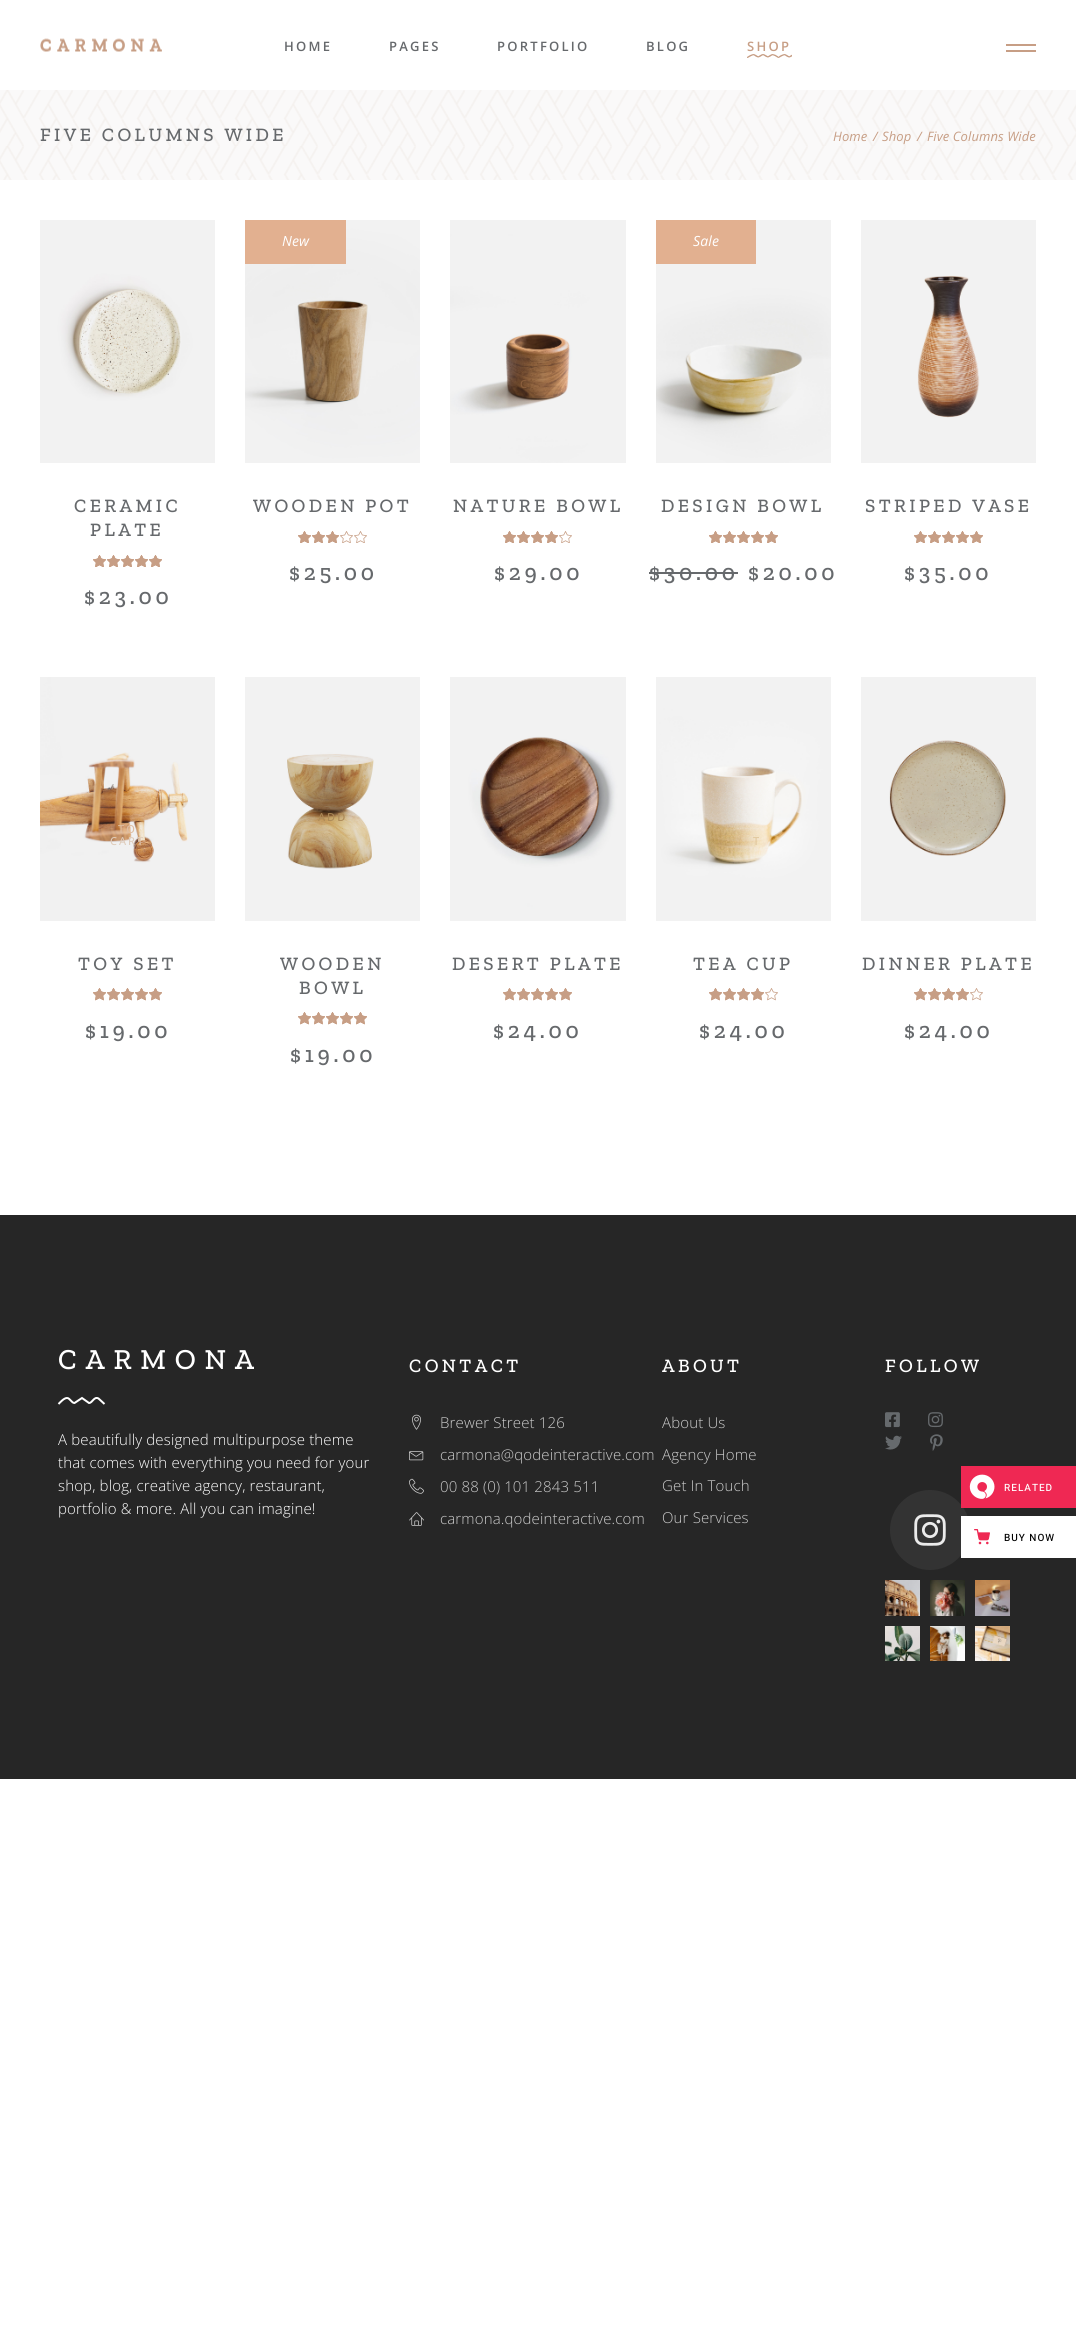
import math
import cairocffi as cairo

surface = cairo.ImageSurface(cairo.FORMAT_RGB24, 1076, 2330)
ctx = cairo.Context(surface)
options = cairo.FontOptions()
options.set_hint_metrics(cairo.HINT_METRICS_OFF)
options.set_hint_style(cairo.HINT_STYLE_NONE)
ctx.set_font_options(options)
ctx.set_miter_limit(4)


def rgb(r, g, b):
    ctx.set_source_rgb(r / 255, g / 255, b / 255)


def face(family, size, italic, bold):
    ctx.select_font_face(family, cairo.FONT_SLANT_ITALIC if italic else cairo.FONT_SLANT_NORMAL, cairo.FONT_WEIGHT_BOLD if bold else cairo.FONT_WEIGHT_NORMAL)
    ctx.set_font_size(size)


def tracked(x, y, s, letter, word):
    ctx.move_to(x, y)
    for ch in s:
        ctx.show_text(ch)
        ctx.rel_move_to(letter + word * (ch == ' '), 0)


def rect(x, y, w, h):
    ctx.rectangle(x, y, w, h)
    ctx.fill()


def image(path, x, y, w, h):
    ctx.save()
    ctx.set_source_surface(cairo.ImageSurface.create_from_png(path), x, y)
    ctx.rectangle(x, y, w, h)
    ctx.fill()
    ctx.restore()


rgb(255, 255, 255)
ctx.paint()
image('image0.png', 40, 38, 122, 14)
face('Open Sans SemiBold', 13, 0, 0)
rgb(102, 105, 108)
tracked(284, 51, 'HOME', 2.25, 0)
tracked(389, 51, 'PAGES', 2.25, 0)
tracked(497, 51, 'PORTFOLIO', 2.25, 0)
tracked(646, 51, 'BLOG', 2.25, 0)
rgb(199, 158, 133)
tracked(747, 51, 'SHOP', 2.25, 0)
image('image1.png', 747, 54, 45, 4)
rect(1006, 44, 30, 2)
rect(1006, 50, 30, 2)
rgb(250, 249, 249)
rect(0, 90, 1076, 90)
image('image2.png', 0, 90, 1076, 90)
face('Zilla Slab Medium', 19, 0, 0)
rgb(102, 105, 108)
tracked(40, 141, 'FIVE COLUMNS WIDE', 3.4, 0)
face('Open Sans', 13, 1, 0)
rgb(199, 158, 133)
tracked(833, 141, 'Home', 0.1, 0)
tracked(873, 141, '/', 0.1, 0)
tracked(882, 141, 'Shop', 0.1, 0)
tracked(917, 141, '/', 0.1, 0)
tracked(927, 141, 'Five Columns Wide', 0.1, 0)
image('image3.png', 40, 220, 175, 243)
face('Zilla Slab Medium', 19, 0, 0)
rgb(102, 105, 108)
tracked(74, 512, 'CERAMIC', 3.4, 0)
tracked(90, 536, 'PLATE', 3.4, 0)
image('image4.png', 93, 555, 13, 12)
image('image4.png', 107, 555, 13, 12)
image('image4.png', 121, 555, 13, 12)
image('image4.png', 135, 555, 13, 12)
image('image4.png', 149, 555, 13, 12)
image('image5.png', 93, 555, 13, 12)
image('image5.png', 107, 555, 13, 12)
image('image5.png', 121, 555, 13, 12)
image('image5.png', 135, 555, 13, 12)
image('image5.png', 149, 555, 13, 12)
face('Zilla Slab Medium', 23, 0, 0)
tracked(84, 604, '$23.00', 3.75, 0)
image('image6.png', 245, 220, 175, 243)
rgb(226, 176, 144)
rect(245, 220, 101, 44)
face('Open Sans', 14, 1, 0)
rgb(255, 255, 255)
tracked(282, 246, 'New', 0.15, 0)
face('Zilla Slab Medium', 19, 0, 0)
rgb(102, 105, 108)
tracked(253, 512, 'WOODEN POT', 3.4, 0)
image('image4.png', 298, 531, 13, 12)
image('image4.png', 312, 531, 13, 12)
image('image4.png', 326, 531, 13, 12)
image('image4.png', 340, 531, 13, 12)
image('image4.png', 354, 531, 13, 12)
image('image5.png', 298, 531, 13, 12)
image('image5.png', 312, 531, 13, 12)
image('image5.png', 326, 531, 13, 12)
face('Zilla Slab Medium', 23, 0, 0)
tracked(289, 580, '$25.00', 3.75, 0)
image('image7.png', 450, 220, 176, 243)
face('Open Sans Medium', 11, 0, 0)
rgb(138, 94, 60)
tracked(520, 388, 'C', 2, 0)
face('Zilla Slab Medium', 19, 0, 0)
rgb(102, 105, 108)
tracked(453, 512, 'NATURE BOWL', 3.4, 0)
image('image4.png', 503, 531, 13, 12)
image('image4.png', 517, 531, 13, 12)
image('image4.png', 531, 531, 13, 12)
image('image4.png', 545, 531, 13, 12)
image('image4.png', 559, 531, 13, 12)
image('image5.png', 503, 531, 13, 12)
image('image5.png', 517, 531, 13, 12)
image('image5.png', 531, 531, 13, 12)
image('image5.png', 545, 531, 13, 12)
face('Zilla Slab Medium', 23, 0, 0)
tracked(494, 580, '$29.00', 3.75, 0)
image('image8.png', 656, 220, 175, 243)
rgb(226, 176, 144)
rect(656, 220, 100, 44)
face('Open Sans', 14, 1, 0)
rgb(255, 255, 255)
tracked(693, 246, 'Sale', 0.15, 0)
face('Zilla Slab Medium', 19, 0, 0)
rgb(102, 105, 108)
tracked(661, 512, 'DESIGN BOWL', 3.4, 0)
image('image4.png', 709, 531, 13, 12)
image('image4.png', 723, 531, 13, 12)
image('image4.png', 737, 531, 13, 12)
image('image4.png', 751, 531, 13, 12)
image('image4.png', 765, 531, 13, 12)
image('image5.png', 709, 531, 13, 12)
image('image5.png', 723, 531, 13, 12)
image('image5.png', 737, 531, 13, 12)
image('image5.png', 751, 531, 13, 12)
image('image5.png', 765, 531, 13, 12)
face('Zilla Slab Medium', 23, 0, 0)
tracked(649, 580, '$30.00', 3.75, 0)
rect(649, 572, 89, 2)
tracked(748, 580, '$20.00', 3.75, 0)
image('image9.png', 861, 220, 175, 243)
face('Zilla Slab Medium', 19, 0, 0)
tracked(865, 512, 'STRIPED VASE', 3.4, 0)
image('image4.png', 914, 531, 13, 12)
image('image4.png', 928, 531, 13, 12)
image('image4.png', 942, 531, 13, 12)
image('image4.png', 956, 531, 13, 12)
image('image4.png', 970, 531, 13, 12)
image('image5.png', 914, 531, 13, 12)
image('image5.png', 928, 531, 13, 12)
image('image5.png', 942, 531, 13, 12)
image('image5.png', 956, 531, 13, 12)
image('image5.png', 970, 531, 13, 12)
face('Zilla Slab Medium', 23, 0, 0)
tracked(904, 580, '$35.00', 3.75, 0)
image('image10.png', 40, 677, 175, 244)
face('Open Sans Medium', 11, 0, 0)
rgb(222, 190, 162)
tracked(118, 833, 'TO', 2, 0)
rgb(223, 204, 187)
tracked(110, 845, 'CART', 2, 0)
face('Zilla Slab Medium', 19, 0, 0)
rgb(102, 105, 108)
tracked(78, 970, 'TOY SET', 3.4, 0)
image('image11.png', 93, 988, 13, 13)
image('image11.png', 107, 988, 13, 13)
image('image11.png', 121, 988, 13, 13)
image('image11.png', 135, 988, 13, 13)
image('image11.png', 149, 988, 13, 13)
image('image12.png', 93, 988, 13, 13)
image('image12.png', 107, 988, 13, 13)
image('image12.png', 121, 988, 13, 13)
image('image12.png', 135, 988, 13, 13)
image('image12.png', 149, 988, 13, 13)
face('Zilla Slab Medium', 23, 0, 0)
tracked(85, 1038, '$19.00', 3.75, 0)
image('image13.png', 245, 677, 175, 244)
face('Open Sans Medium', 11, 0, 0)
rgb(173, 138, 88)
tracked(318, 821, 'ADD', 2, 0)
face('Zilla Slab Medium', 19, 0, 0)
rgb(102, 105, 108)
tracked(280, 970, 'WOODEN', 3.4, 0)
tracked(299, 994, 'BOWL', 3.4, 0)
image('image11.png', 298, 1012, 13, 13)
image('image11.png', 312, 1012, 13, 13)
image('image11.png', 326, 1012, 13, 13)
image('image11.png', 340, 1012, 13, 13)
image('image11.png', 354, 1012, 13, 13)
image('image12.png', 298, 1012, 13, 13)
image('image12.png', 312, 1012, 13, 13)
image('image12.png', 326, 1012, 13, 13)
image('image12.png', 340, 1012, 13, 13)
image('image12.png', 354, 1012, 13, 13)
face('Zilla Slab Medium', 23, 0, 0)
tracked(290, 1062, '$19.00', 3.75, 0)
image('image14.png', 450, 677, 176, 244)
face('Zilla Slab Medium', 19, 0, 0)
tracked(452, 970, 'DESERT PLATE', 3.4, 0)
image('image11.png', 503, 988, 13, 13)
image('image11.png', 517, 988, 13, 13)
image('image11.png', 531, 988, 13, 13)
image('image11.png', 545, 988, 13, 13)
image('image11.png', 559, 988, 13, 13)
image('image12.png', 503, 988, 13, 13)
image('image12.png', 517, 988, 13, 13)
image('image12.png', 531, 988, 13, 13)
image('image12.png', 545, 988, 13, 13)
image('image12.png', 559, 988, 13, 13)
face('Zilla Slab Medium', 23, 0, 0)
tracked(493, 1038, '$24.00', 3.75, 0)
image('image15.png', 656, 677, 175, 244)
face('Open Sans Medium', 11, 0, 0)
rgb(224, 198, 155)
tracked(753, 845, 'T', 2, 0)
face('Zilla Slab Medium', 19, 0, 0)
rgb(102, 105, 108)
tracked(693, 970, 'TEA CUP', 3.4, 0)
image('image11.png', 709, 988, 13, 13)
image('image11.png', 723, 988, 13, 13)
image('image11.png', 737, 988, 13, 13)
image('image11.png', 751, 988, 13, 13)
image('image11.png', 765, 988, 13, 13)
image('image12.png', 709, 988, 13, 13)
image('image12.png', 723, 988, 13, 13)
image('image12.png', 737, 988, 13, 13)
image('image12.png', 751, 988, 13, 13)
face('Zilla Slab Medium', 23, 0, 0)
tracked(699, 1038, '$24.00', 3.75, 0)
image('image16.png', 861, 677, 175, 244)
face('Zilla Slab Medium', 19, 0, 0)
tracked(862, 970, 'DINNER PLATE', 3.4, 0)
image('image11.png', 914, 988, 13, 13)
image('image11.png', 928, 988, 13, 13)
image('image11.png', 942, 988, 13, 13)
image('image11.png', 956, 988, 13, 13)
image('image11.png', 970, 988, 13, 13)
image('image12.png', 914, 988, 13, 13)
image('image12.png', 928, 988, 13, 13)
image('image12.png', 942, 988, 13, 13)
image('image12.png', 956, 988, 13, 13)
face('Zilla Slab Medium', 23, 0, 0)
tracked(904, 1038, '$24.00', 3.75, 0)
rgb(38, 38, 38)
rect(0, 1215, 1076, 564)
face('Zilla Slab Medium', 29, 0, 0)
rgb(255, 255, 255)
tracked(58, 1369, 'CARMONA', 8.75, 0)
ctx.new_path()
ctx.move_to(58.5, 1404)
ctx.curve_to(60.5, 1402, 64, 1398, 67, 1398)
ctx.curve_to(70, 1398, 71.5, 1403, 74.5, 1403)
ctx.line_to(82, 1398)
ctx.line_to(89, 1403)
ctx.curve_to(92.5, 1403, 94, 1396, 98.5, 1398.5)
ctx.line_to(104.5, 1404)
ctx.stroke()
face('Open Sans Light', 15, 0, 0)
tracked(58, 1445, 'A beautifully designed multipurpose theme', 0.15, 0)
tracked(58, 1468, 'that comes with everything you need for your', 0.15, 0)
tracked(58, 1491, 'shop, blog, creative agency, restaurant,', 0.15, 0)
tracked(58, 1514, 'portfolio & more. All you can imagine!', 0.15, 0)
face('Zilla Slab Medium', 19, 0, 0)
tracked(409, 1372, 'CONTACT', 3.4, 0)
image('image17.png', 412, 1414, 9, 16)
face('Open Sans Light', 15, 0, 0)
rgb(204, 204, 204)
tracked(440, 1428, 'Brewer Street 126', 0.15, 0)
image('image18.png', 409, 1451, 15, 10)
tracked(440, 1460, 'carmona@qodeinteractive.com', 0.15, 0)
image('image19.png', 409, 1478, 15, 16)
tracked(440, 1492, '00 88 (0) 101 2843 511', 0.15, 0)
image('image20.png', 409, 1512, 15, 14)
tracked(440, 1524, 'carmona.qodeinteractive.com', 0.15, 0)
face('Zilla Slab Medium', 19, 0, 0)
rgb(255, 255, 255)
tracked(662, 1372, 'ABOUT', 3.4, 0)
face('Open Sans Light', 15, 0, 0)
rgb(204, 204, 204)
tracked(662, 1428, 'About Us', 0.15, 0)
tracked(662, 1460, 'Agency Home', 0.15, 0)
tracked(662, 1491, 'Get In Touch', 0.15, 0)
tracked(662, 1523, 'Our Services', 0.15, 0)
face('Zilla Slab Medium', 19, 0, 0)
rgb(255, 255, 255)
tracked(885, 1372, 'FOLLOW', 3.4, 0)
image('image21.png', 885, 1412, 15, 16)
image('image22.png', 928, 1412, 15, 16)
image('image23.png', 885, 1435, 17, 15)
image('image24.png', 930, 1434, 13, 17)
rgb(51, 51, 51)
ctx.arc(930, 1530, 40, 0, 2 * math.pi)
ctx.fill()
image('image25.png', 914, 1514, 32, 32)
image('image26.png', 885, 1580, 35, 36)
image('image27.png', 930, 1580, 35, 36)
image('image28.png', 975, 1580, 35, 36)
image('image29.png', 885, 1626, 35, 35)
image('image30.png', 930, 1626, 35, 35)
image('image31.png', 975, 1626, 35, 35)
rgb(239, 40, 83)
rect(961, 1466, 115, 42)
image('image32.png', 969, 1474, 26, 25)
face('Heebo Medium', 10, 0, 0)
rgb(255, 255, 255)
tracked(1004, 1491, 'RELATED', 1, 0)
rect(961, 1516, 115, 42)
image('image33.png', 974, 1529, 16, 16)
rgb(0, 0, 0)
tracked(1004, 1541, 'BUY NOW', 1, 0)
surface.write_to_png('render.png')
